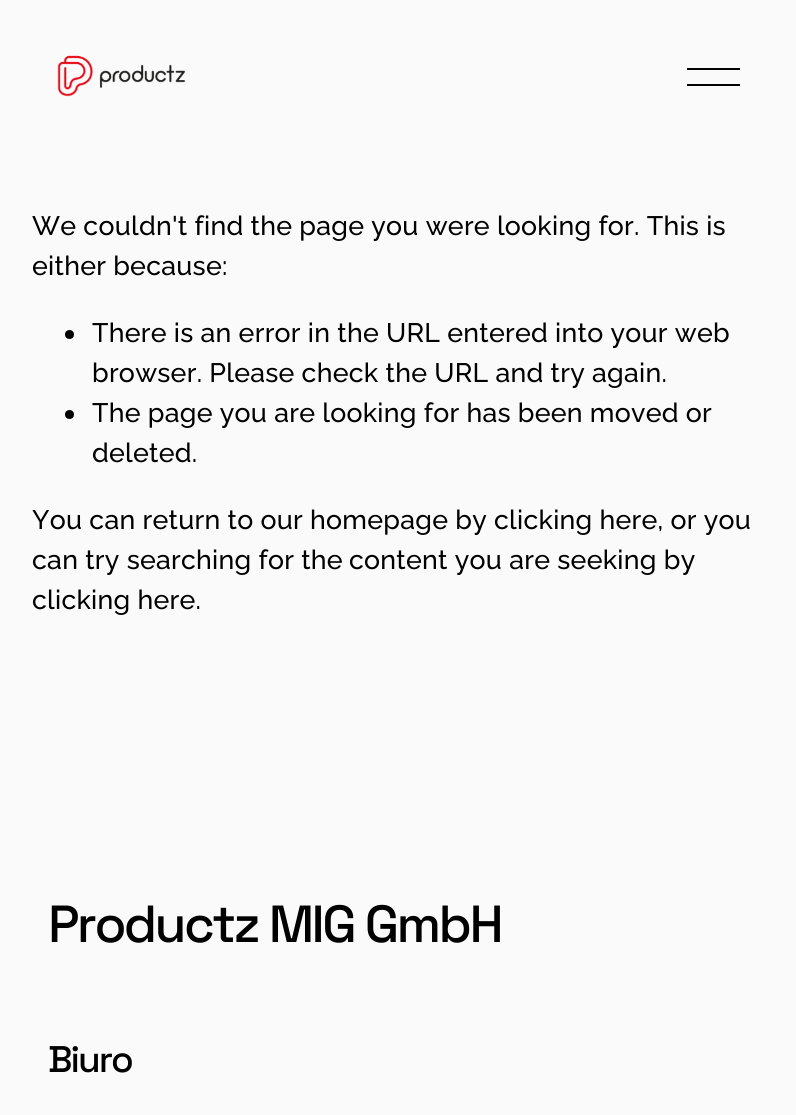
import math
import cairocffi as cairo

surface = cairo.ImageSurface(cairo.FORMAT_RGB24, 796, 1115)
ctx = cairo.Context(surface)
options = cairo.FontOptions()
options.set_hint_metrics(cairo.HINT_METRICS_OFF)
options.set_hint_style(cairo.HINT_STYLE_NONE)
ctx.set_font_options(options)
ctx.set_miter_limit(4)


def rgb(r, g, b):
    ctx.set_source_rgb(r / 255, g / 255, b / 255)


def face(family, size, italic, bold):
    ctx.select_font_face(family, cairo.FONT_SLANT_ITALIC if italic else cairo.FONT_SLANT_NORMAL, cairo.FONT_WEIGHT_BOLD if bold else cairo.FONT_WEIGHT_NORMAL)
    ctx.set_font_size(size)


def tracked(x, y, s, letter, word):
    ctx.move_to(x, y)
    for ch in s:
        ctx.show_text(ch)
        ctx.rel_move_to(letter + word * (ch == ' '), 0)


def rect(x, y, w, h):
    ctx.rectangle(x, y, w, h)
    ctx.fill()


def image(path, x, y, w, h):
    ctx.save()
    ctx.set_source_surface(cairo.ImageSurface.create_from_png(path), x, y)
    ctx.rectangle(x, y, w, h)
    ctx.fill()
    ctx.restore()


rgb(250, 250, 250)
ctx.paint()
image('image0.png', 57, 55, 129, 42)
rgb(0, 0, 0)
rect(687, 68, 53, 2)
rect(687, 84, 53, 2)
face('Raleway Medium', 26.7, 0, 0)
tracked(32, 235, 'We couldn\'t find the page you were looking for. This is', 0.27, 0)
tracked(32, 275, 'either because:', 0.27, 0)
ctx.new_path()
ctx.arc(69.5, 334.5, 4.5, 0, 2 * math.pi)
ctx.fill()
tracked(92, 342, 'There is an error in the URL entered into your web', 0.27, 0)
tracked(92, 382, 'browser. Please check the URL and try again.', 0.27, 0)
ctx.new_path()
ctx.arc(69.5, 414.5, 4.5, 0, 2 * math.pi)
ctx.fill()
tracked(92, 422, 'The page you are looking for has been moved or', 0.27, 0)
tracked(92, 462, 'deleted.', 0.27, 0)
tracked(32, 529, 'You can return to our homepage by clicking here, or you', 0.27, 0)
tracked(32, 569, 'can try searching for the', 0.27, 0)
tracked(349, 569, 'content you are seeking by', 0.27, 0)
tracked(32, 609, 'clicking here.', 0.27, 0)
face('Space Grotesk Medium', 52.1, 0, 0)
tracked(48, 942, 'Productz MIG GmbH', -2.6, 0)
face('Space Grotesk Medium', 37, 0, 0)
tracked(48, 1072, 'Biuro', -2, 0)
surface.write_to_png('render.png')
